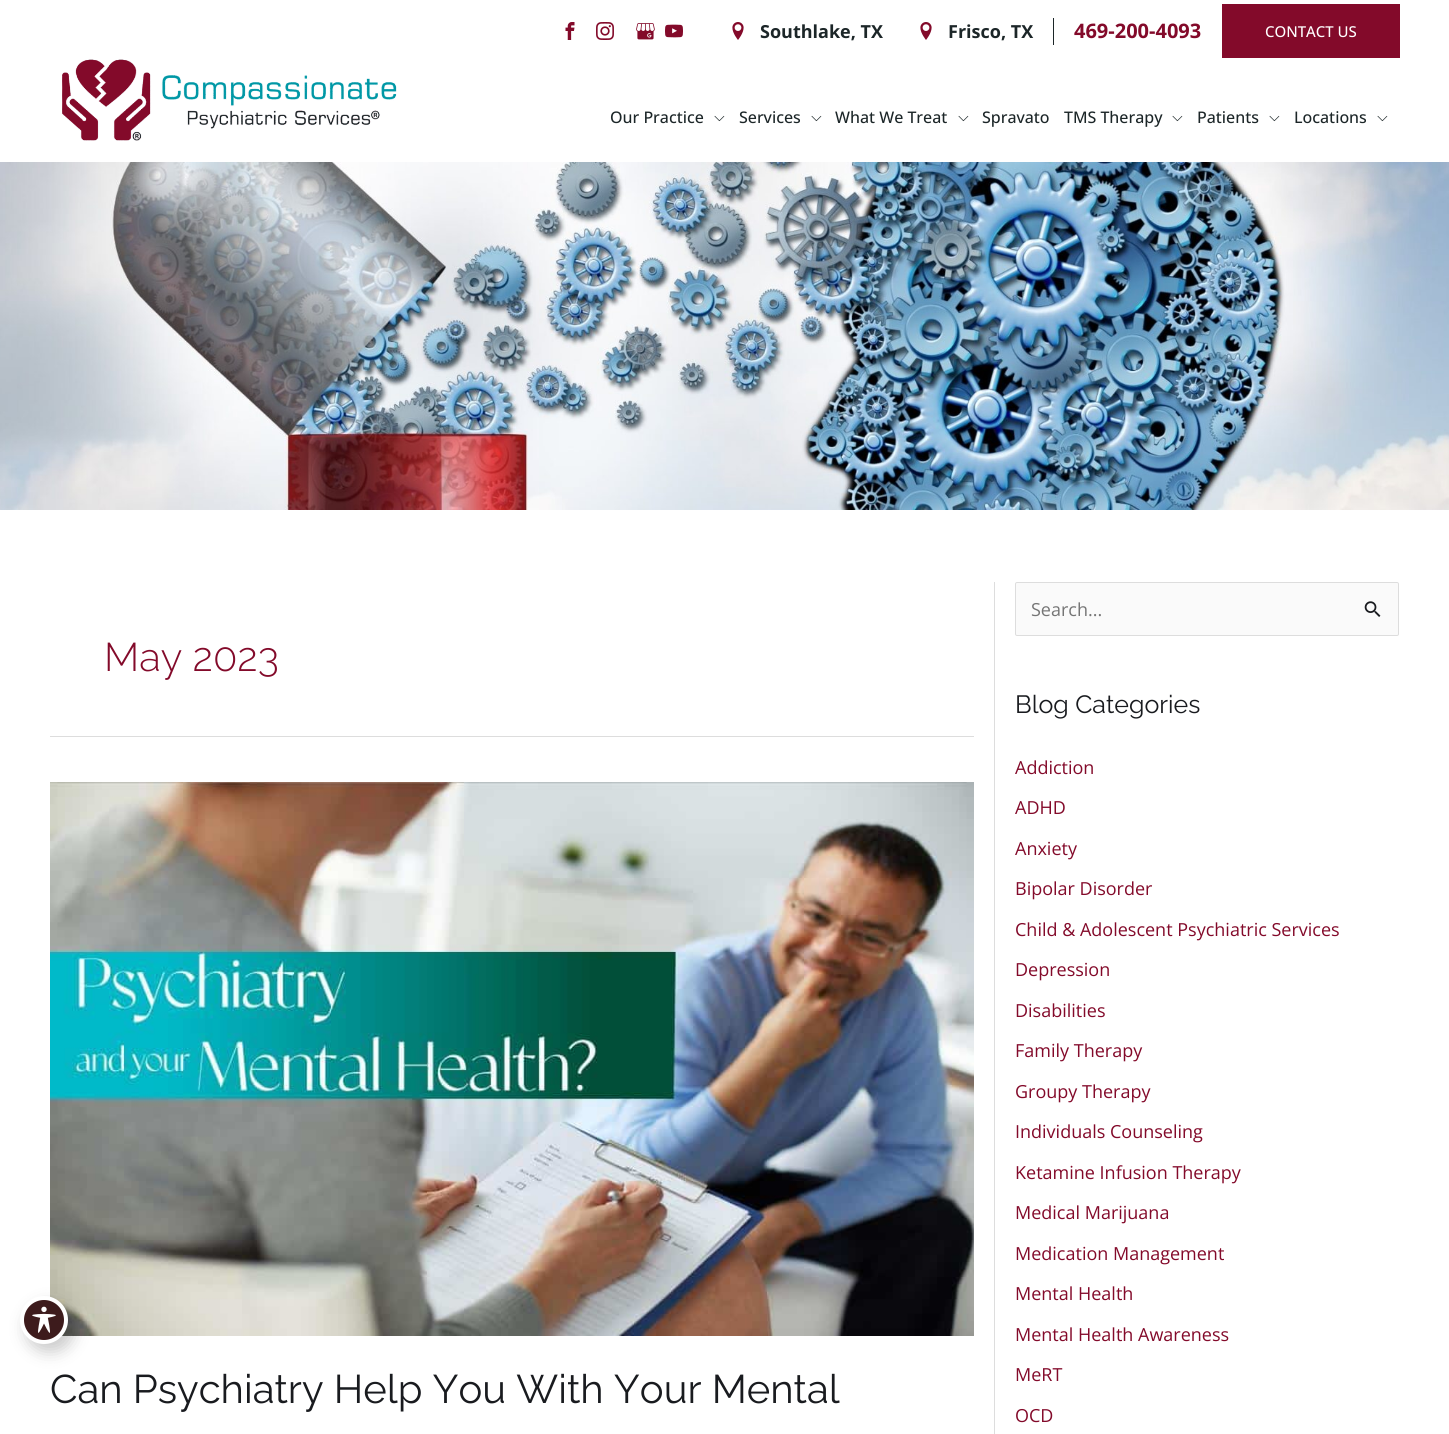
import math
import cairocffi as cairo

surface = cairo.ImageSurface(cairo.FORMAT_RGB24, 1449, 1434)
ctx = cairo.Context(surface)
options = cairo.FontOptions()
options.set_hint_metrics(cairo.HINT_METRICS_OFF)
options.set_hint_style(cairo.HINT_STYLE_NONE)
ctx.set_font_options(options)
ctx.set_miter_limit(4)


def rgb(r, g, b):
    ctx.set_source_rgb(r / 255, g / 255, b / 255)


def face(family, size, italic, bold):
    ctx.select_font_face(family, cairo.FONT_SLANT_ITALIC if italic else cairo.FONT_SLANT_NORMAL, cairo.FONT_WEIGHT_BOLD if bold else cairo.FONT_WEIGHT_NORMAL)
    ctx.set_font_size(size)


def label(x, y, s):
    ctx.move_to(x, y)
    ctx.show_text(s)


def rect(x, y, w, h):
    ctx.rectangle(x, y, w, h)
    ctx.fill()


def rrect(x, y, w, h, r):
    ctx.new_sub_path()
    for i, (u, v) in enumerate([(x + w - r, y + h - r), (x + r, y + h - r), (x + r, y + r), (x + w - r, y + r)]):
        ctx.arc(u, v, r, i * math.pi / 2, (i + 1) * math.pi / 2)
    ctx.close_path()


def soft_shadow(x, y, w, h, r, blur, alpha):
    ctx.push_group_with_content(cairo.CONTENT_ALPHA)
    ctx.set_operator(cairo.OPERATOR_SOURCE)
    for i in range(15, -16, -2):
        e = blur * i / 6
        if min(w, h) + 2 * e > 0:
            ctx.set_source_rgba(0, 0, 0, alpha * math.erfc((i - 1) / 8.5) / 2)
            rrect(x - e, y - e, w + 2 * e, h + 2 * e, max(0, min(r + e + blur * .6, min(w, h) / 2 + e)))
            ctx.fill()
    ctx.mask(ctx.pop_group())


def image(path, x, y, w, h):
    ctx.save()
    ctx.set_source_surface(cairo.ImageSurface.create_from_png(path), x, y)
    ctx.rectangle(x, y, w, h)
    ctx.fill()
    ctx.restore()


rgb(255, 255, 255)
ctx.paint()
image('image9.png', 50, 782, 924, 554)
rgb(0, 0, 0)
soft_shadow(26, 1304, 48, 48, 24, 8, 0.2)
rgb(61, 27, 28)
ctx.arc(44, 1320, 22, 0, 2 * math.pi)
ctx.fill_preserve()
rgb(255, 255, 255)
ctx.set_line_width(4)
ctx.stroke()
image('image0.png', 32, 1306, 24, 27)
image('image1.png', 565, 22, 10, 18)
image('image2.png', 596, 22, 18, 18)
image('image3.png', 636, 23, 19, 17)
image('image4.png', 665, 24, 18, 14)
image('image5.png', 732, 22, 12, 18)
face('Open Sans', 18, 0, 1)
rgb(28, 38, 40)
label(760, 38, 'Southlake, TX')
image('image5.png', 920, 22, 12, 18)
label(948, 38, 'Frisco, TX')
rect(1053, 18, 1, 27)
face('Open Sans', 20, 0, 1)
rgb(131, 10, 42)
label(1074, 38, '469-200-4093')
rect(1222, 4, 178, 54)
face('Open Sans Medium', 15, 0, 0)
rgb(255, 255, 255)
label(1265, 37, 'CONTACT US')
image('image6.png', 62, 59, 335, 82)
face('Open Sans Medium', 16, 0, 0)
rgb(28, 38, 40)
label(610, 123, 'Our Practice')
image('image7.png', 714, 115, 11, 7)
label(739, 123, 'Services')
image('image7.png', 811, 115, 11, 7)
label(835, 123, 'What We Treat')
image('image7.png', 958, 115, 11, 7)
label(982, 123, 'Spravato')
label(1064, 123, 'TMS Therapy')
image('image7.png', 1172, 115, 11, 7)
label(1197, 123, 'Patients')
image('image7.png', 1269, 115, 11, 7)
label(1294, 123, 'Locations')
image('image7.png', 1377, 115, 11, 7)
image('image8.png', 0, 162, 1449, 348)
rgb(221, 221, 221)
rect(994, 582, 1, 852)
rect(50, 736, 924, 1)
face('Raleway Light', 40, 0, 0)
rgb(131, 10, 42)
label(104, 671, 'May 2023')
face('Raleway', 40, 0, 0)
rgb(25, 27, 31)
label(50, 1403, 'Can Psychiatry Help You With Your Mental')
rgb(250, 250, 250)
rrect(1015.5, 582.5, 383, 53, 1.5)
ctx.fill_preserve()
rgb(221, 221, 221)
ctx.set_line_width(1)
ctx.stroke()
face('Open Sans', 18, 0, 0)
rgb(117, 117, 117)
label(1031, 616, 'Search...')
image('image10.png', 1364, 601, 17, 16)
face('Raleway', 25, 0, 0)
rgb(25, 27, 31)
label(1015, 713, 'Blog Categories')
face('Open Sans', 18, 0, 0)
rgb(131, 10, 42)
label(1015, 774, 'Addiction')
label(1015, 814, 'ADHD')
label(1015, 855, 'Anxiety')
label(1015, 895, 'Bipolar Disorder')
label(1015, 936, 'Child & Adolescent Psychiatric Services')
label(1015, 976, 'Depression')
label(1015, 1017, 'Disabilities')
label(1015, 1057, 'Family Therapy')
label(1015, 1098, 'Groupy Therapy')
label(1015, 1138, 'Individuals Counseling')
label(1015, 1179, 'Ketamine Infusion Therapy')
label(1015, 1219, 'Medical Marijuana')
label(1015, 1260, 'Medication Management')
label(1015, 1300, 'Mental Health')
label(1015, 1341, 'Mental Health Awareness')
label(1015, 1381, 'MeRT')
label(1015, 1422, 'OCD')
surface.write_to_png('render.png')
